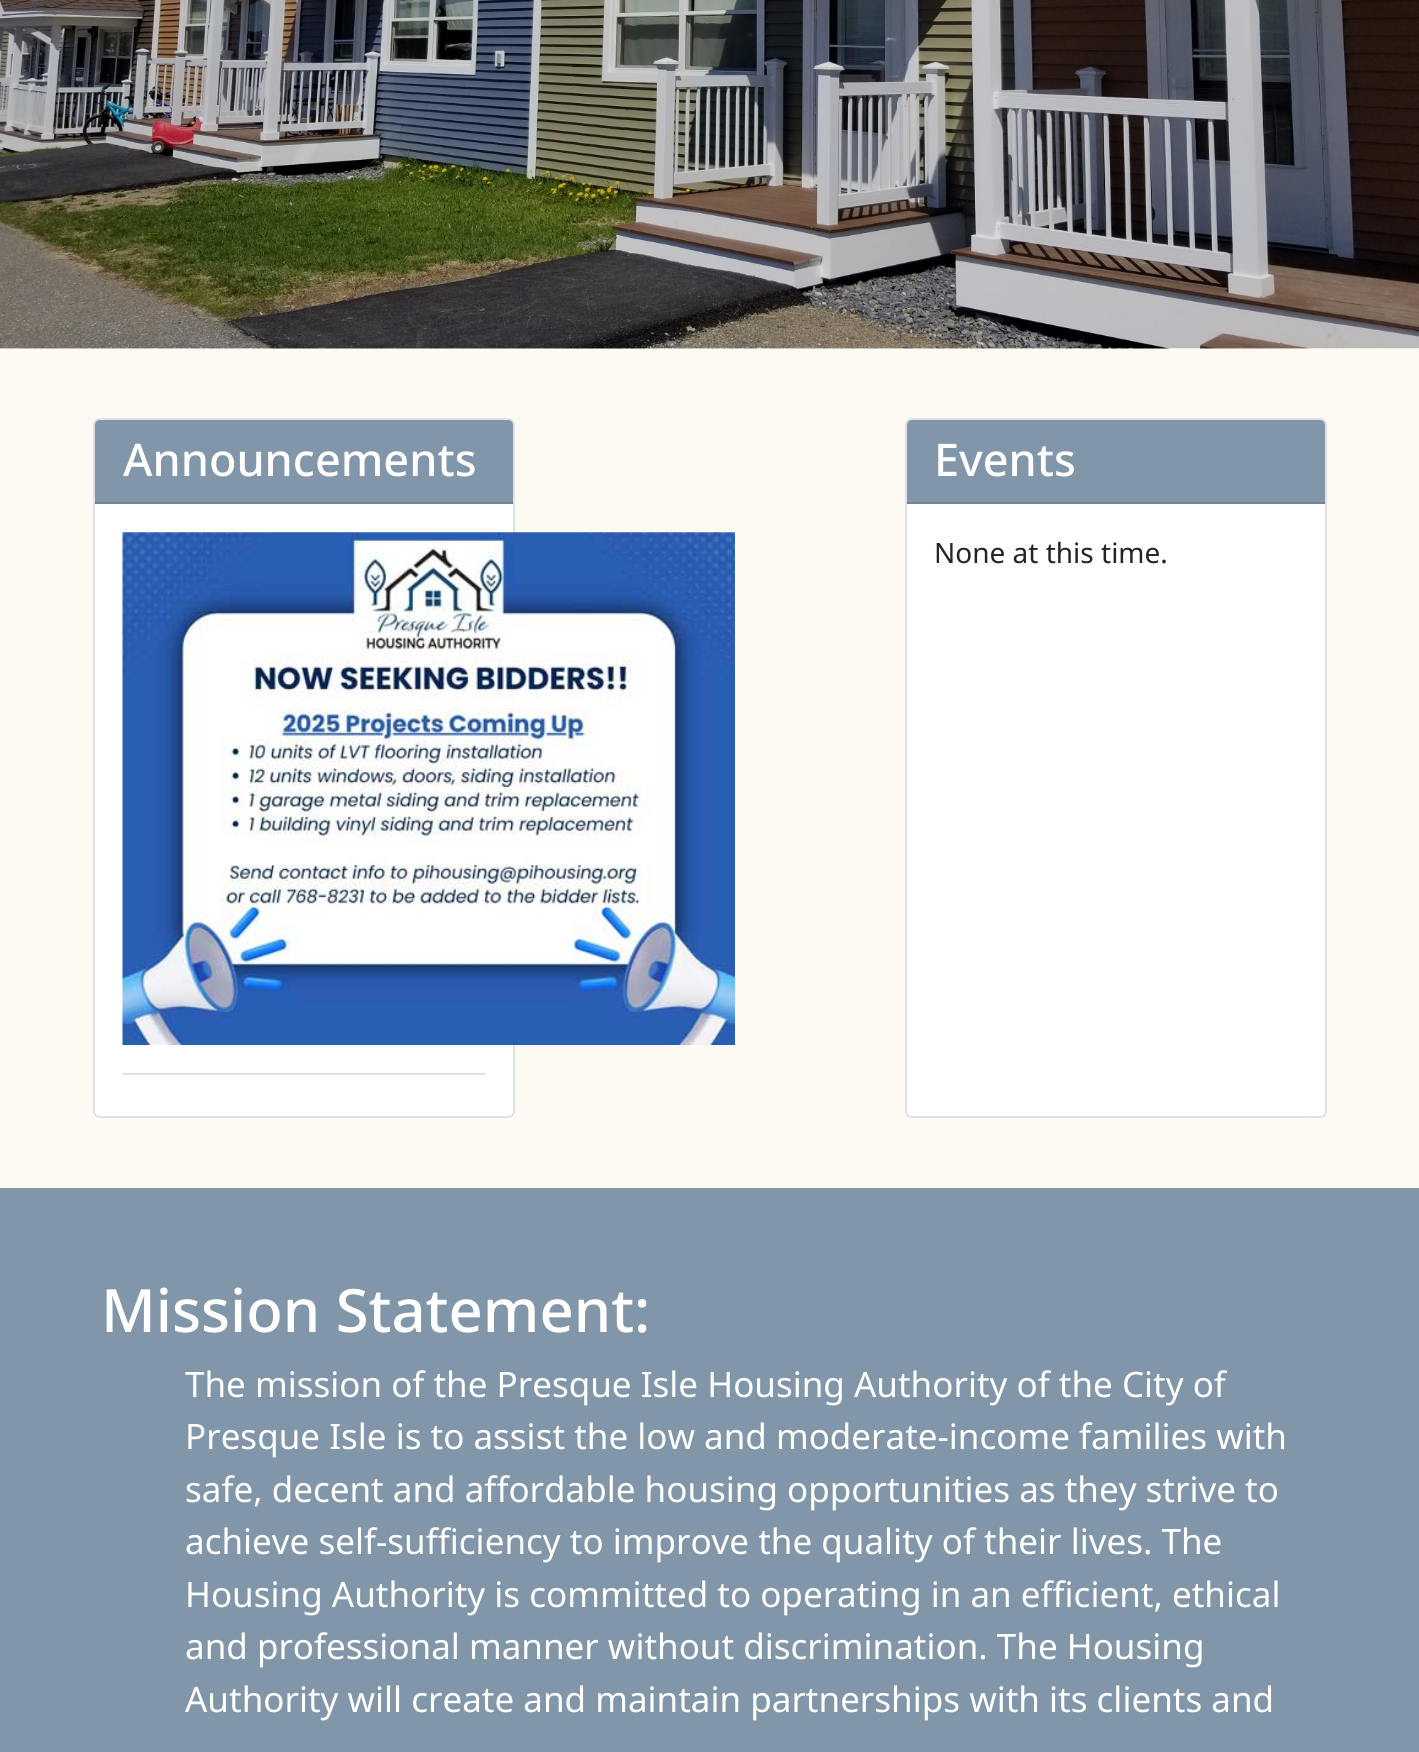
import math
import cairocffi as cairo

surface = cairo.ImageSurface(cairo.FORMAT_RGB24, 1419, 1752)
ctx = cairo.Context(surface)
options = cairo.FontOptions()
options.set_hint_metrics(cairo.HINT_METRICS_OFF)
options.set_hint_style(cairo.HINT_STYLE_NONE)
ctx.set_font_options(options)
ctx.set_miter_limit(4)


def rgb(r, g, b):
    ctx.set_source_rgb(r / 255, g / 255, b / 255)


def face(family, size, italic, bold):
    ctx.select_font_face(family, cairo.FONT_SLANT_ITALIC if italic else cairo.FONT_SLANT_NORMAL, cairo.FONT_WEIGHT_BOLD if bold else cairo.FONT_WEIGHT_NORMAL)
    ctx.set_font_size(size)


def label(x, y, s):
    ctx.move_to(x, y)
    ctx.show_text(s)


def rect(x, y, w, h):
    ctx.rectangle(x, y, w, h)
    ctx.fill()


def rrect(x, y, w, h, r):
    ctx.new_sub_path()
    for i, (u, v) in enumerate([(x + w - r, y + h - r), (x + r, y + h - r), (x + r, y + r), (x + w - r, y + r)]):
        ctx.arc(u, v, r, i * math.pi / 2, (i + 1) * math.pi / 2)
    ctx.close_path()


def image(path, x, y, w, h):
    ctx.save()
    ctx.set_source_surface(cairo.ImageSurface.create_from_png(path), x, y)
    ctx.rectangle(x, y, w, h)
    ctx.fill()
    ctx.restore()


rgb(253, 250, 243)
ctx.paint()
image('image0.png', 0, 0, 1419, 349)
rgb(255, 255, 255)
rrect(93, 418, 422, 700, 7)
ctx.fill()
rrect(94, 419, 420, 698, 6)
ctx.set_source_rgba(0, 0, 0, 0.12)
ctx.stroke()
rgb(129, 150, 169)
ctx.new_path()
ctx.move_to(100, 420)
ctx.line_to(508, 420)
ctx.curve_to(511, 420, 513, 422, 513, 425)
ctx.line_to(513, 504)
ctx.line_to(95, 504)
ctx.line_to(95, 425)
ctx.curve_to(95, 422, 97, 420, 100, 420)
ctx.close_path()
ctx.fill()
rgb(113, 131, 148)
rect(95, 502, 418, 2)
face('Noto Sans Medium', 45, 0, 0)
rgb(255, 255, 255)
label(123, 476, 'Announcements')
rgb(222, 226, 230)
rect(123, 1073, 362, 2)
image('image1.png', 122, 532, 613, 513)
rgb(255, 255, 255)
rrect(905, 418, 422, 700, 7)
ctx.fill()
rrect(906, 419, 420, 698, 6)
ctx.set_source_rgba(0, 0, 0, 0.12)
ctx.stroke()
rgb(129, 150, 169)
ctx.new_path()
ctx.move_to(912, 420)
ctx.line_to(1320, 420)
ctx.curve_to(1323, 420, 1325, 422, 1325, 425)
ctx.line_to(1325, 504)
ctx.line_to(907, 504)
ctx.line_to(907, 425)
ctx.curve_to(907, 422, 909, 420, 912, 420)
ctx.close_path()
ctx.fill()
rgb(113, 131, 148)
rect(907, 502, 418, 2)
rgb(255, 255, 255)
label(934, 476, 'Events')
face('Noto Sans', 28, 0, 0)
rgb(33, 37, 41)
label(934, 563, 'None at this time.')
rgb(129, 150, 169)
rect(0, 1188, 1419, 564)
face('Noto Sans Medium', 59.75, 0, 0)
rgb(255, 255, 255)
label(101, 1332, 'Mission Statement:')
face('Noto Sans', 35, 0, 0)
label(185, 1397, 'The mission of the Presque Isle Housing Authority of the City of')
label(185, 1449, 'Presque Isle is to assist the low and moderate-income families with')
label(185, 1502, 'safe, decent and affordable housing opportunities as they strive to')
label(185, 1554, 'achieve self-sufficiency to improve the quality of their lives. The')
label(185, 1607, 'Housing Authority is committed to operating in an efficient, ethical')
label(185, 1659, 'and professional manner without discrimination. The Housing')
label(185, 1712, 'Authority will create and maintain partnerships with its clients and')
surface.write_to_png('render.png')
